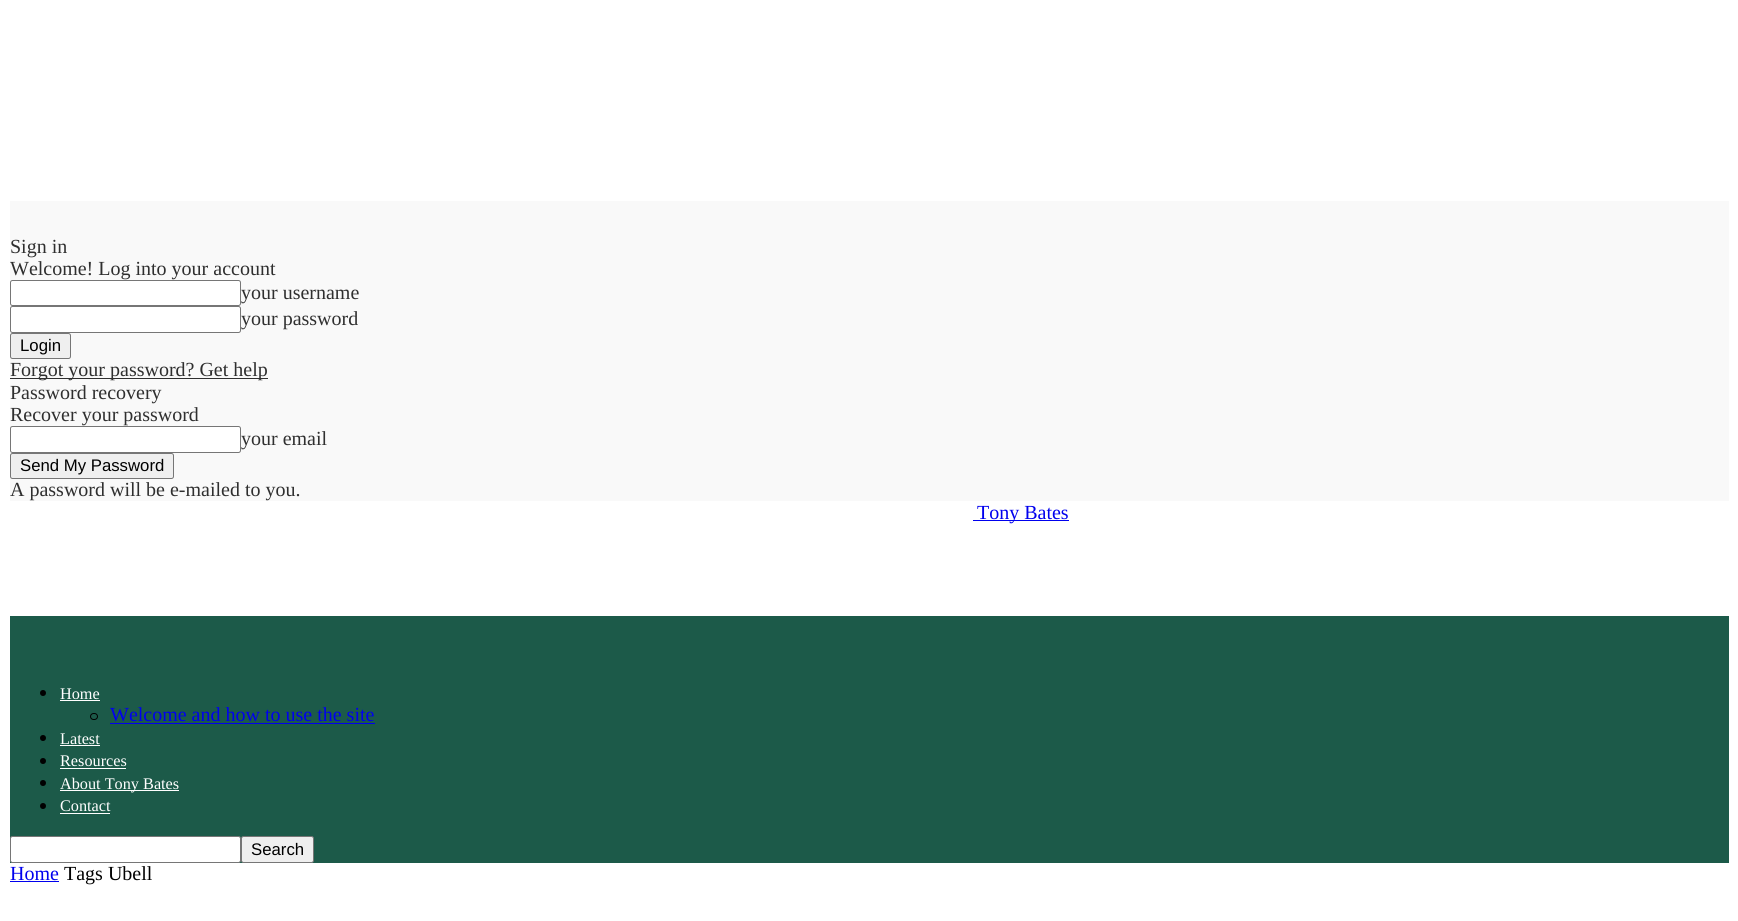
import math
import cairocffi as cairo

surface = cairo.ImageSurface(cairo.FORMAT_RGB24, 1738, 921)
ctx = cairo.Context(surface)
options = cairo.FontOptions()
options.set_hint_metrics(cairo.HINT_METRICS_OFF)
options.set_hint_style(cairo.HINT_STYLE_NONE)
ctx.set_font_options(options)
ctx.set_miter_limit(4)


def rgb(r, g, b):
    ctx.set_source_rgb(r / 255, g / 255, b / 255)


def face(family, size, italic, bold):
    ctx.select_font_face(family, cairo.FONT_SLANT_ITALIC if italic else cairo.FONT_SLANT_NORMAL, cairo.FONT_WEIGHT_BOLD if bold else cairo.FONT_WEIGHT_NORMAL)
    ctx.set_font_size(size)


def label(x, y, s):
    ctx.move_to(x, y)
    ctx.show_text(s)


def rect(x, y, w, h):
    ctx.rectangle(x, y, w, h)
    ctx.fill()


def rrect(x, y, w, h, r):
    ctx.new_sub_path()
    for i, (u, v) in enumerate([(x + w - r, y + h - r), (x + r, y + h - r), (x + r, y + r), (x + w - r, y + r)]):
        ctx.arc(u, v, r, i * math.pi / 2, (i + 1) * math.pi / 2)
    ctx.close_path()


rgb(255, 255, 255)
ctx.paint()
rgb(249, 249, 249)
rect(10, 201, 1719, 300)
face('Liberation Serif', 20, 0, 0)
rgb(47, 47, 47)
label(10, 253, 'Sign in')
label(10, 275, 'Welcome! Log into your account')
rgb(255, 255, 255)
rrect(10.5, 280.5, 230, 25, 2)
ctx.fill_preserve()
rgb(118, 118, 118)
ctx.set_line_width(1)
ctx.stroke()
rgb(47, 47, 47)
label(241, 299, 'your username')
rgb(255, 255, 255)
rrect(10.5, 306.5, 230, 26, 2)
ctx.fill_preserve()
rgb(118, 118, 118)
ctx.stroke()
rgb(47, 47, 47)
label(241, 325, 'your password')
rgb(239, 239, 239)
rrect(10.5, 333.5, 60, 25, 2)
ctx.fill_preserve()
rgb(118, 118, 118)
ctx.stroke()
face('Liberation Sans', 16.75, 0, 0)
rgb(0, 0, 0)
label(20, 351, 'Login')
rgb(47, 47, 47)
rect(10, 378, 258, 1)
face('Liberation Serif', 20, 0, 0)
label(10, 376, 'Forgot your password? Get help')
label(10, 399, 'Password recovery')
label(10, 421, 'Recover your password')
rgb(255, 255, 255)
rrect(10.5, 426.5, 230, 26, 2)
ctx.fill_preserve()
rgb(118, 118, 118)
ctx.stroke()
rgb(47, 47, 47)
label(241, 445, 'your email')
rgb(239, 239, 239)
rrect(10.5, 453.5, 163, 25, 2)
ctx.fill_preserve()
rgb(118, 118, 118)
ctx.stroke()
face('Liberation Sans', 16.75, 0, 0)
rgb(0, 0, 0)
label(20, 471, 'Send My Password')
face('Liberation Serif', 20, 0, 0)
rgb(47, 47, 47)
label(10, 496, 'A password will be e-mailed to you.')
rgb(0, 0, 238)
rect(973, 520, 96, 1)
label(977, 519, 'Tony Bates')
rgb(28, 90, 73)
rect(10, 616, 1719, 247)
rgb(0, 0, 0)
ctx.new_path()
ctx.arc(43, 693, 3, 0, 2 * math.pi)
ctx.fill()
face('Liberation Serif', 16.25, 0, 0)
rgb(255, 255, 255)
label(60, 699, 'Home')
rect(60, 700, 40, 1)
rrect(90.5, 713.5, 7, 6, 3)
rgb(0, 0, 0)
ctx.stroke()
face('Liberation Serif', 20, 0, 0)
rgb(0, 0, 238)
label(110, 721, 'Welcome and how to use the site')
rect(110, 723, 265, 1)
rgb(0, 0, 0)
ctx.new_path()
ctx.arc(43, 738, 3, 0, 2 * math.pi)
ctx.fill()
face('Liberation Serif', 16.25, 0, 0)
rgb(255, 255, 255)
label(60, 744, 'Latest')
rect(60, 745, 40, 1)
rgb(0, 0, 0)
ctx.new_path()
ctx.arc(43, 761, 3, 0, 2 * math.pi)
ctx.fill()
rgb(255, 255, 255)
label(60, 766, 'Resources')
rect(60, 768, 66, 1)
rgb(0, 0, 0)
ctx.new_path()
ctx.arc(43, 783, 3, 0, 2 * math.pi)
ctx.fill()
rgb(255, 255, 255)
rect(60, 790, 119, 1)
label(60, 789, 'About Tony Bates')
rgb(0, 0, 0)
ctx.new_path()
ctx.arc(43, 806, 3, 0, 2 * math.pi)
ctx.fill()
rgb(255, 255, 255)
label(60, 811, 'Contact')
rect(60, 813, 50, 1)
rrect(10.5, 836.5, 230, 26, 2)
ctx.fill_preserve()
rgb(118, 118, 118)
ctx.stroke()
rgb(239, 239, 239)
rrect(241.5, 836.5, 72, 26, 2)
ctx.fill_preserve()
rgb(118, 118, 118)
ctx.stroke()
face('Liberation Sans', 16.75, 0, 0)
rgb(0, 0, 0)
label(251, 855, 'Search')
face('Liberation Serif', 20, 0, 0)
rgb(0, 0, 238)
label(10, 880, 'Home')
rect(10, 881, 49, 1)
rgb(0, 0, 0)
label(64, 880, 'Tags Ubell')
surface.write_to_png('render.png')
